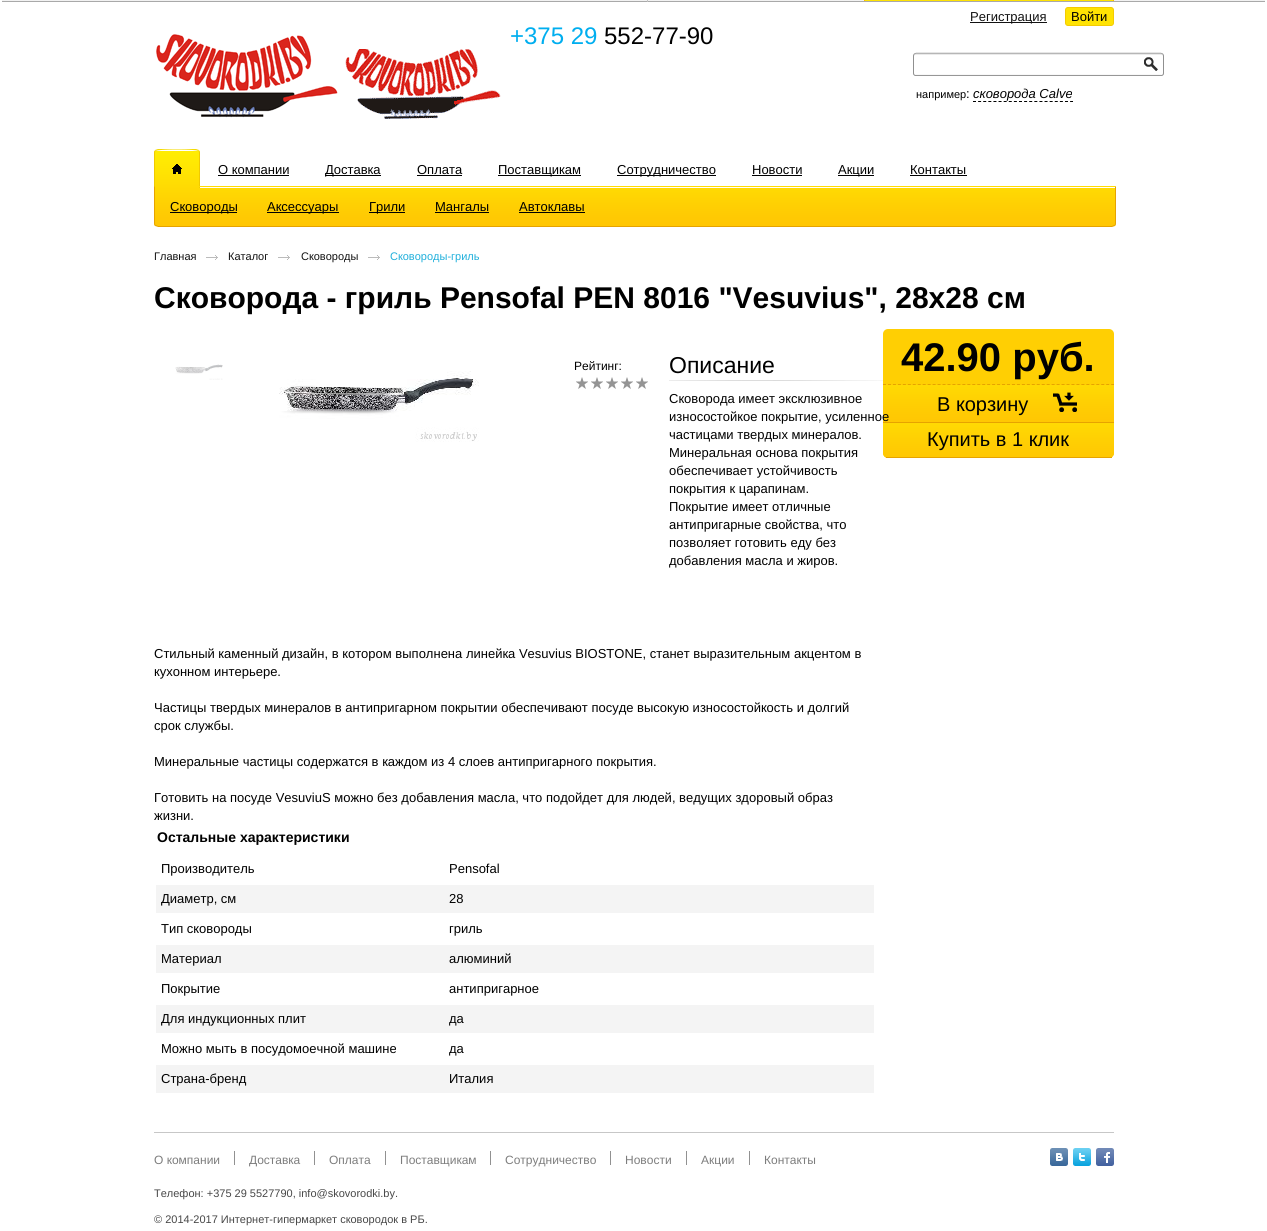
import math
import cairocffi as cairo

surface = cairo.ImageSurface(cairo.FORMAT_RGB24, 1267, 1231)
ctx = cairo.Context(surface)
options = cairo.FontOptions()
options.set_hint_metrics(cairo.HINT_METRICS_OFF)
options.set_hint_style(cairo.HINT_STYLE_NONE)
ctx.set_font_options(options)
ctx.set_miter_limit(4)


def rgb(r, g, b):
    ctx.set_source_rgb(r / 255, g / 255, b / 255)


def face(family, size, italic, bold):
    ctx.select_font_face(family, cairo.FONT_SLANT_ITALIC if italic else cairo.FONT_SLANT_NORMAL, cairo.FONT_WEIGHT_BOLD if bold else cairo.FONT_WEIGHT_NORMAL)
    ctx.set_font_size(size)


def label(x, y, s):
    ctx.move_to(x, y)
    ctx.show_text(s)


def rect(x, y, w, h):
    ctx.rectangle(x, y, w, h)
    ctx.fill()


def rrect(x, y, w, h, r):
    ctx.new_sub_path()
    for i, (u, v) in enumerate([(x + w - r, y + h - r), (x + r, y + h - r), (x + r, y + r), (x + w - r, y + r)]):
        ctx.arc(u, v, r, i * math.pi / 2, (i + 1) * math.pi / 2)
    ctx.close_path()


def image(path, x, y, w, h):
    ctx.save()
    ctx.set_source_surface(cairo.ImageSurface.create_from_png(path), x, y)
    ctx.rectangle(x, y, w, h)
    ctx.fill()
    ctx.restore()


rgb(255, 255, 255)
ctx.paint()
image('image0.png', 2, 0, 1263, 2)
rgb(194, 194, 194)
rect(647, 0, 1, 2)
rgb(255, 227, 3)
rect(864, 0, 250, 1)
rgb(255, 186, 3)
rect(1113, 0, 1, 1)
rect(864, 0, 1, 1)
rgb(18, 18, 18)
rect(970, 22, 77, 1)
face('Liberation Sans', 13, 0, 0)
label(970, 21, 'Регистрация')
rgb(255, 227, 3)
rrect(1065.5, 7.5, 48, 18, 2.5)
ctx.fill_preserve()
rgb(244, 203, 2)
ctx.set_line_width(1)
ctx.stroke()
rgb(0, 0, 0)
label(1071, 21, 'Войти')
image('image1.png', 156, 34, 182, 84)
face('Liberation Sans', 24, 0, 0)
rgb(0, 174, 239)
label(510, 44, '+375 29')
rgb(0, 0, 0)
label(604, 44, '552-77-90')
image('image2.png', 345, 49, 156, 70)
image('image3.png', 913, 52, 251, 24)
image('image4.png', 1144, 57, 14, 14)
face('Liberation Sans', 11, 0, 0)
label(916, 98, 'например')
face('Liberation Sans', 13, 0, 0)
label(966, 98, ':')
face('Liberation Sans', 13, 1, 0)
label(973, 98, 'сковорода Calve')
ctx.new_path()
ctx.move_to(973, 101.5)
ctx.line_to(1073, 101.5)
ctx.set_dash([3, 2.11])
ctx.stroke()
image('image5.png', 154, 151, 46, 37)
rgb(244, 218, 2)
ctx.new_path()
ctx.move_to(158, 149)
ctx.line_to(155, 150)
ctx.line_to(156, 151)
ctx.curve_to(157, 149, 197, 149, 198, 151)
ctx.line_to(199, 150)
ctx.line_to(196, 149)
ctx.close_path()
ctx.fill()
rgb(240, 201, 1)
ctx.new_path()
ctx.move_to(199, 190)
ctx.line_to(200, 190)
ctx.line_to(200, 153)
ctx.curve_to(200, 152, 199.5, 151, 199, 150)
ctx.line_to(198, 151)
ctx.curve_to(199, 151, 199, 152, 199, 153)
ctx.close_path()
ctx.move_to(154, 190)
ctx.line_to(155, 190)
ctx.line_to(155, 153)
ctx.curve_to(155, 152, 155, 151, 156, 151)
ctx.line_to(155, 150)
ctx.curve_to(154.5, 151, 154, 152, 154, 153)
ctx.close_path()
ctx.fill()
image('image6.png', 172, 164, 10, 10)
face('Liberation Sans', 13, 0, 0)
rgb(0, 0, 0)
label(218, 174, 'О компании')
rect(218, 175, 71, 1)
rect(325, 175, 56, 1)
label(325, 174, 'Доставка')
label(417, 174, 'Оплата')
rect(417, 175, 45, 1)
rect(498, 175, 83, 1)
label(498, 174, 'Поставщикам')
rect(617, 175, 99, 1)
label(617, 174, 'Сотрудничество')
label(752, 174, 'Новости')
rect(752, 175, 50, 1)
rect(838, 175, 36, 1)
label(838, 174, 'Акции')
label(910, 174, 'Контакты')
rect(910, 175, 57, 1)
image('image7.png', 154, 188, 962, 38)
rgb(255, 219, 3)
ctx.new_path()
ctx.move_to(154, 186)
ctx.line_to(155, 187)
ctx.line_to(1115, 187)
ctx.line_to(1116, 186)
ctx.close_path()
ctx.fill()
rgb(230, 163, 0)
ctx.new_path()
ctx.move_to(1116, 186)
ctx.line_to(1115, 187)
ctx.line_to(1115, 223)
ctx.curve_to(1115, 224, 1115, 225, 1114, 225)
ctx.line_to(1115, 226)
ctx.curve_to(1115.5, 225, 1116, 224, 1116, 223)
ctx.close_path()
ctx.fill()
ctx.new_path()
ctx.move_to(158, 227)
ctx.line_to(1112, 227)
ctx.line_to(1115, 226)
ctx.line_to(1114, 225)
ctx.line_to(1112, 226)
ctx.line_to(158, 226)
ctx.line_to(156, 225)
ctx.line_to(155, 226)
ctx.close_path()
ctx.fill()
ctx.new_path()
ctx.move_to(155, 187)
ctx.line_to(154, 186)
ctx.line_to(154, 223)
ctx.curve_to(154, 224, 154.5, 225, 155, 226)
ctx.line_to(156, 225)
ctx.curve_to(155, 225, 155, 224, 155, 223)
ctx.close_path()
ctx.fill()
rgb(0, 0, 0)
rect(170, 212, 67, 1)
label(170, 211, 'Сковороды')
rect(267, 212, 72, 1)
label(267, 211, 'Аксессуары')
rect(369, 212, 36, 1)
label(369, 211, 'Грили')
label(435, 211, 'Мангалы')
rect(435, 212, 54, 1)
label(519, 211, 'Автоклавы')
rect(519, 212, 66, 1)
face('Liberation Sans', 11, 0, 0)
rgb(18, 18, 18)
label(154, 260, 'Главная')
image('image8.png', 206, 255, 12, 5)
label(228, 260, 'Каталог')
image('image8.png', 278, 255, 12, 5)
label(301, 260, 'Сковороды')
image('image8.png', 368, 255, 12, 5)
rgb(31, 175, 219)
label(390, 260, 'Сковороды-гриль')
face('Liberation Sans', 30, 0, 1)
rgb(0, 0, 0)
label(154, 308, 'Сковорода - гриль Pensofal PEN 8016 "Vesuvius", 28x28 см')
image('image9.png', 175, 364, 48, 16)
image('image10.png', 279, 371, 200, 71)
face('Liberation Sans', 12, 0, 0)
label(574, 370, 'Рейтинг:')
image('image11.png', 576, 377, 12, 12)
image('image11.png', 591, 377, 12, 12)
image('image11.png', 606, 377, 12, 12)
image('image11.png', 621, 377, 12, 12)
image('image11.png', 636, 377, 12, 12)
face('Liberation Sans', 23, 0, 0)
label(669, 373, 'Описание')
image('image12.png', 669, 380, 214, 1)
face('Liberation Sans', 13, 0, 0)
label(669, 403, 'Сковорода имеет эксклюзивное')
rgb(255, 207, 3)
rrect(883, 329, 231, 129, 5)
ctx.fill()
image('image13.png', 883, 385, 231, 37)
image('image15.png', 883, 423, 231, 35)
rgb(230, 163, 0)
rect(883, 422, 231, 1)
rgb(0, 0, 0)
label(669, 421, 'износостойкое покрытие, усиленное')
label(669, 439, 'частицами твердых минералов.')
label(669, 457, 'Минеральная основа покрытия')
label(669, 475, 'обеспечивает устойчивость')
label(669, 493, 'покрытия к царапинам.')
label(669, 511, 'Покрытие имеет отличные')
label(669, 529, 'антипригарные свойства, что')
label(669, 547, 'позволяет готовить еду без')
label(669, 565, 'добавления масла и жиров.')
label(154, 658, 'Стильный каменный дизайн, в котором выполнена линейка Vesuvius BIOSTONE, станет выразительным акцентом в')
label(154, 676, 'кухонном интерьере.')
label(154, 712, 'Частицы твердых минералов в антипригарном покрытии обеспечивают посуде высокую износостойкость и долгий')
label(154, 730, 'срок службы.')
label(154, 766, 'Минеральные частицы содержатся в каждом из 4 слоев антипригарного покрытия.')
label(154, 802, 'Готовить на посуде VesuviuS можно без добавления масла, что подойдет для людей, ведущих здоровый образ')
label(154, 820, 'жизни.')
face('Liberation Sans', 14, 0, 1)
label(157, 842, 'Остальные характеристики')
face('Liberation Sans', 13, 0, 0)
label(161, 873, 'Производитель')
label(449, 873, 'Pensofal')
rgb(244, 244, 244)
rect(156, 885, 718, 28)
rgb(0, 0, 0)
label(161, 903, 'Диаметр, см')
label(449, 903, '28')
label(161, 933, 'Тип сковороды')
label(449, 933, 'гриль')
rgb(244, 244, 244)
rect(156, 945, 718, 28)
rgb(0, 0, 0)
label(161, 963, 'Материал')
label(449, 963, 'алюминий')
label(161, 993, 'Покрытие')
label(449, 993, 'антипригарное')
rgb(244, 244, 244)
rect(156, 1005, 718, 28)
rgb(0, 0, 0)
label(161, 1023, 'Для индукционных плит')
label(449, 1023, 'да')
label(161, 1053, 'Можно мыть в посудомоечной машине')
label(449, 1053, 'да')
rgb(244, 244, 244)
rect(156, 1065, 718, 28)
rgb(0, 0, 0)
label(161, 1083, 'Страна-бренд')
label(449, 1083, 'Италия')
face('Liberation Sans', 40, 0, 1)
label(901, 371, '42.90 руб.')
ctx.new_path()
ctx.move_to(883, 384.5)
ctx.line_to(1114, 384.5)
rgb(230, 163, 0)
ctx.set_dash([3, 1.96])
ctx.stroke()
image('image14.png', 1053, 392, 24, 20)
face('Liberation Sans', 20, 0, 0)
rgb(0, 0, 0)
label(937, 411, 'В корзину')
rgb(230, 163, 0)
rect(886, 457, 226, 1)
rgb(0, 0, 0)
label(927, 446, 'Купить в 1 клик')
rgb(199, 199, 199)
rect(154, 1132, 960, 1)
face('Liberation Sans', 12, 0, 0)
rgb(125, 125, 125)
label(154, 1164, 'О компании')
rgb(145, 145, 145)
rect(234, 1151, 1, 14)
rgb(125, 125, 125)
label(249, 1164, 'Доставка')
rgb(145, 145, 145)
rect(314, 1151, 1, 14)
rgb(125, 125, 125)
label(329, 1164, 'Оплата')
rgb(145, 145, 145)
rect(385, 1151, 1, 14)
rgb(125, 125, 125)
label(400, 1164, 'Поставщикам')
rgb(145, 145, 145)
rect(490, 1151, 1, 14)
rgb(125, 125, 125)
label(505, 1164, 'Сотрудничество')
rgb(145, 145, 145)
rect(610, 1151, 1, 14)
rgb(125, 125, 125)
label(625, 1164, 'Новости')
rgb(145, 145, 145)
rect(686, 1151, 1, 14)
rgb(125, 125, 125)
label(701, 1164, 'Акции')
rgb(145, 145, 145)
rect(749, 1151, 1, 14)
rgb(125, 125, 125)
label(764, 1164, 'Контакты')
image('image16.png', 1050, 1148, 18, 18)
image('image17.png', 1073, 1148, 18, 18)
image('image18.png', 1096, 1148, 18, 18)
face('Liberation Sans', 11, 0, 0)
rgb(71, 71, 71)
label(154, 1197, 'Телефон: +375 29 5527790, info@skovorodki.by.')
label(154, 1223, '© 2014-2017 Интернет-гипермаркет сковородок в РБ.')
surface.write_to_png('render.png')
